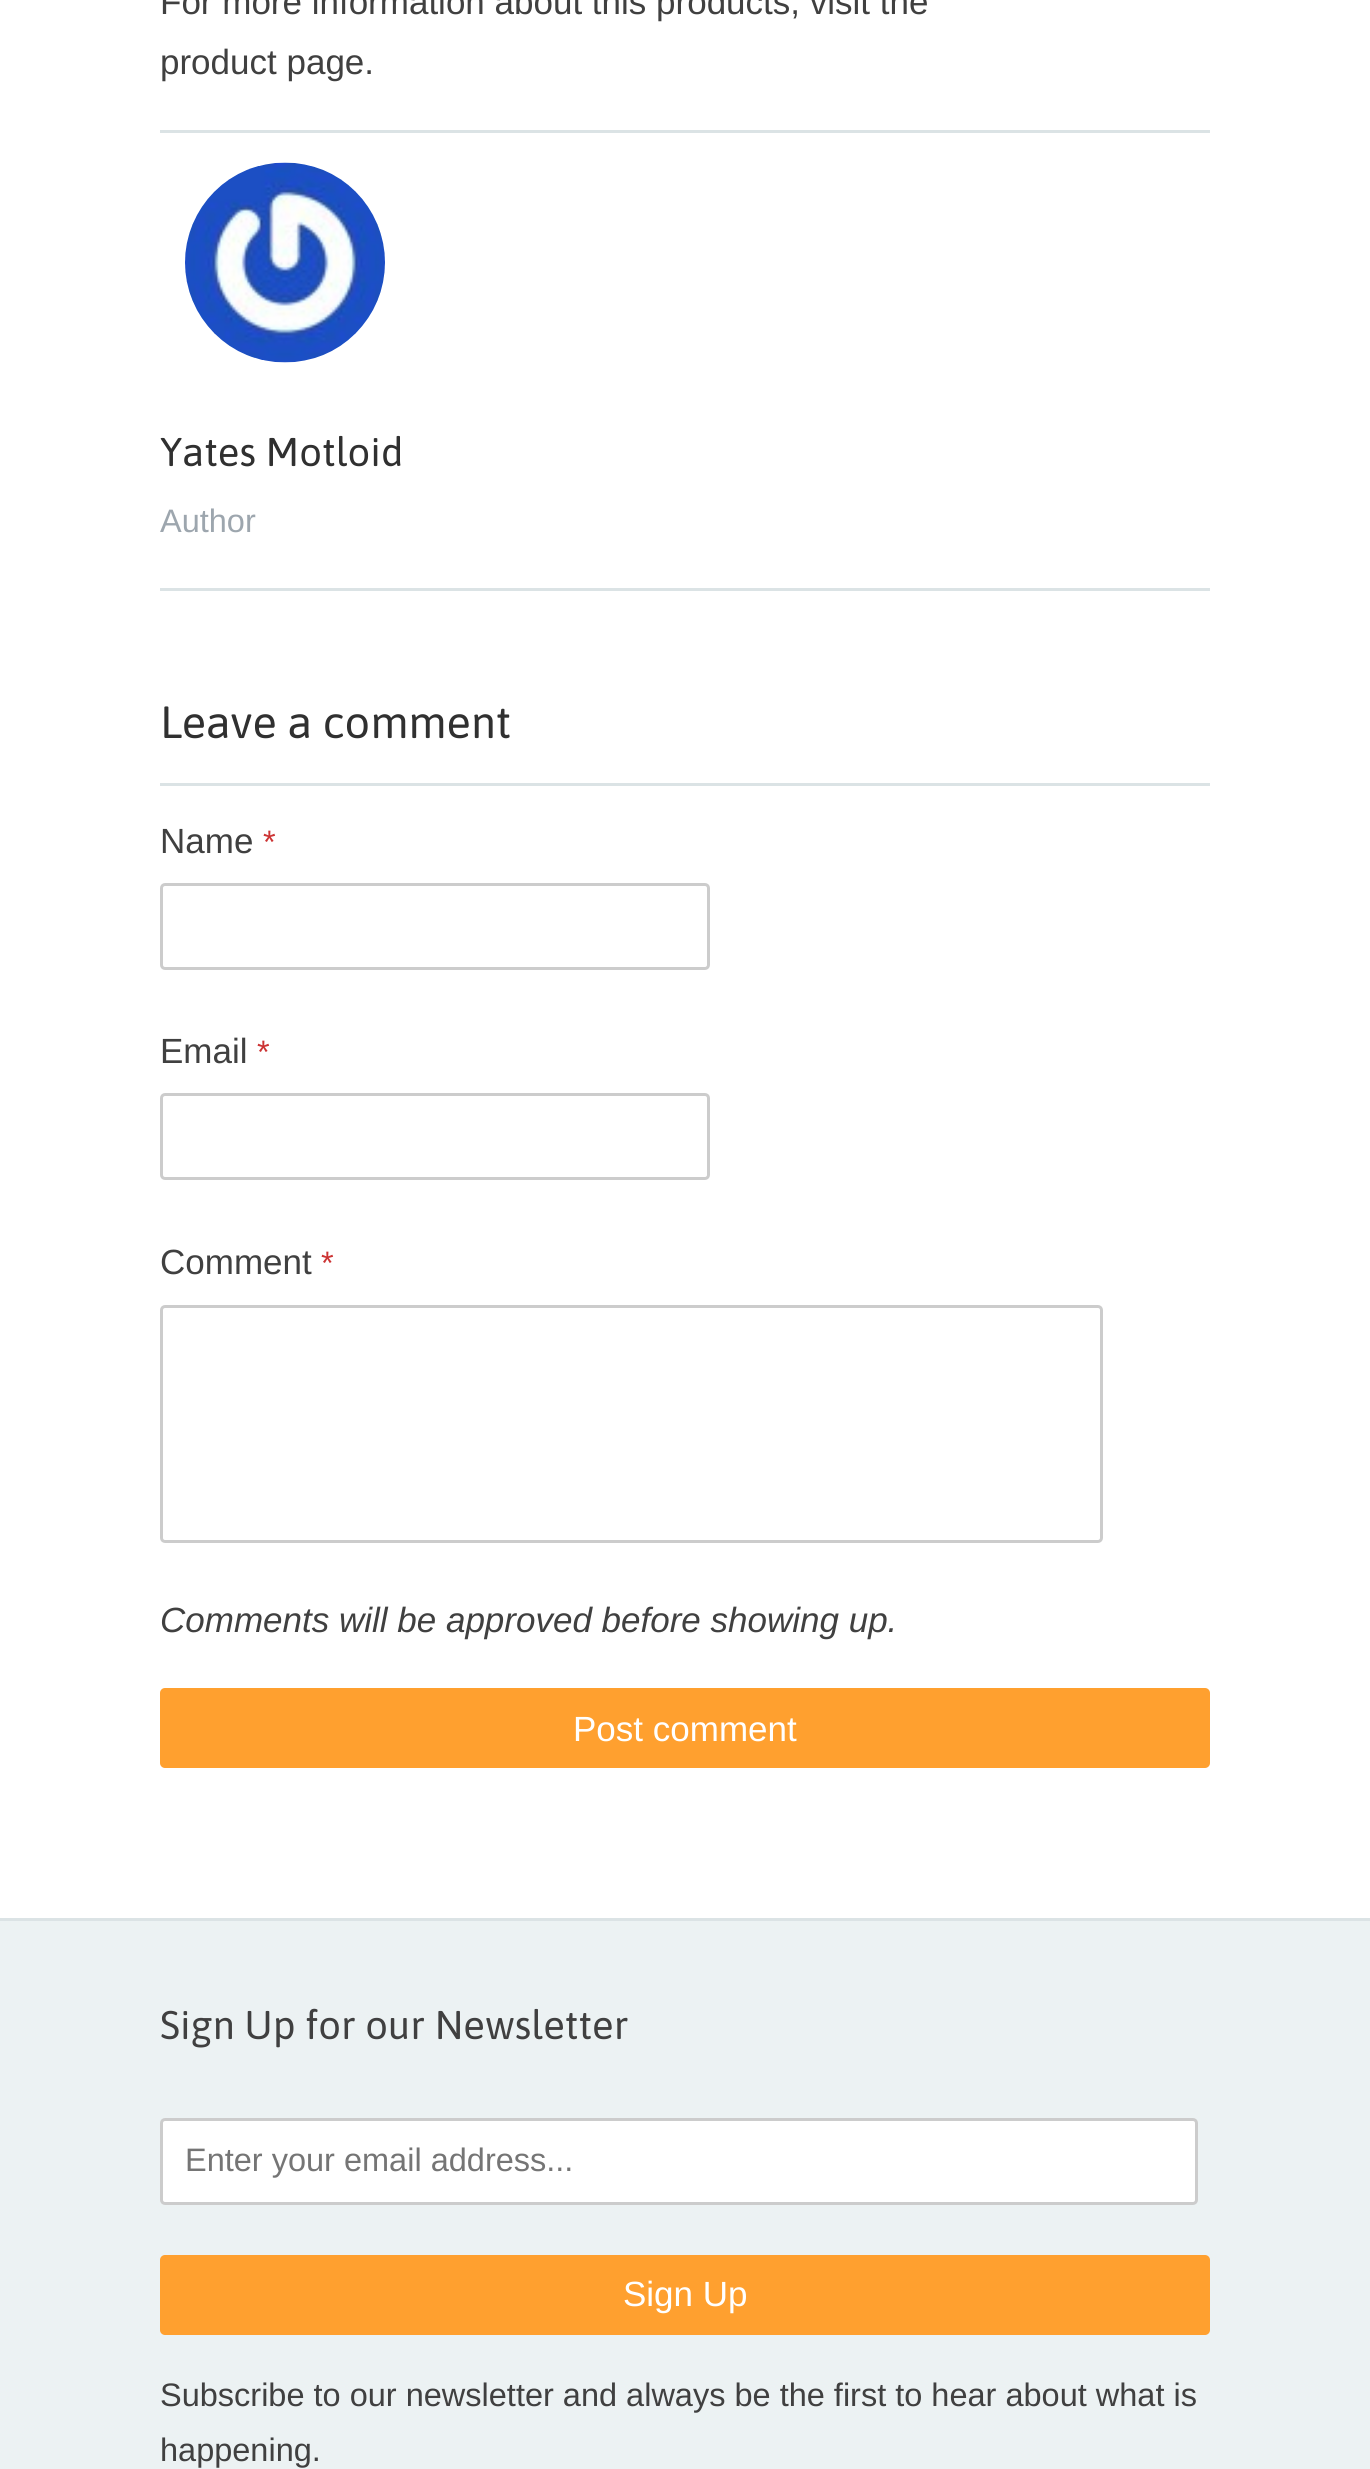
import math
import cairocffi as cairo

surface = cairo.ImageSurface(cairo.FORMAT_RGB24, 1370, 2469)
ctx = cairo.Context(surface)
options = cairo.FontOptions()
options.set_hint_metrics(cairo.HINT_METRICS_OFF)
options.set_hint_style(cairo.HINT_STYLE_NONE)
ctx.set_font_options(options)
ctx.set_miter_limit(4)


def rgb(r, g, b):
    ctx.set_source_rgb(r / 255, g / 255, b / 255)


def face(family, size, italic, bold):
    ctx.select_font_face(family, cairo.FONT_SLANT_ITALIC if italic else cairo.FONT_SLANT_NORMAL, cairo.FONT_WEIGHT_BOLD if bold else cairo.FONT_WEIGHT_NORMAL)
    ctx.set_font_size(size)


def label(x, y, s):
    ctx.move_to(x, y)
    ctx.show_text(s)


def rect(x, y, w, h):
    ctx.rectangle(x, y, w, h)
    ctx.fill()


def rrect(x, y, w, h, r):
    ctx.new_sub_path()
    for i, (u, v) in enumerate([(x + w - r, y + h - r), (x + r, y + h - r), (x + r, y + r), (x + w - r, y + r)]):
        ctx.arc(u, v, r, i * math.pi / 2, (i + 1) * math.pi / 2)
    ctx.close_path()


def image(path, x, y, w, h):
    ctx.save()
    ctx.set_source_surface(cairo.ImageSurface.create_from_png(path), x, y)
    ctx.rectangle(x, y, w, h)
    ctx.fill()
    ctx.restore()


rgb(255, 255, 255)
ctx.paint()
face('Liberation Sans', 35, 0, 0)
rgb(64, 64, 64)
label(160, 14, 'For more information about this products, visit the')
label(160, 74, 'product page.')
rgb(219, 227, 229)
rect(160, 130, 1050, 3)
image('image0.png', 185, 162, 200, 201)
face('Asap', 40, 0, 0)
rgb(48, 48, 48)
label(160, 466, 'Yates Motloid')
face('Liberation Sans', 32.5, 0, 0)
rgb(157, 166, 174)
label(160, 532, 'Author')
rgb(219, 227, 229)
rect(160, 588, 1050, 3)
rect(160, 783, 1050, 3)
face('Asap', 45, 0, 0)
rgb(48, 48, 48)
label(160, 738, 'Leave a comment')
face('Liberation Sans', 35, 0, 0)
rgb(64, 64, 64)
label(160, 853, 'Name')
face('Liberation Sans', 32.5, 0, 0)
rgb(204, 51, 51)
label(263, 853, '*')
rrect(161.5, 884.5, 547, 84, 3.5)
rgb(204, 204, 204)
ctx.set_line_width(3)
ctx.stroke()
face('Liberation Sans', 35, 0, 0)
rgb(64, 64, 64)
label(160, 1063, 'Email')
face('Liberation Sans', 32.5, 0, 0)
rgb(204, 51, 51)
label(257, 1063, '*')
rrect(161.5, 1094.5, 547, 84, 3.5)
rgb(204, 204, 204)
ctx.stroke()
face('Liberation Sans', 35, 0, 0)
rgb(64, 64, 64)
label(160, 1274, 'Comment')
face('Liberation Sans', 32.5, 0, 0)
rgb(204, 51, 51)
label(321, 1274, '*')
rrect(161.5, 1306.5, 940, 235, 3.5)
rgb(204, 204, 204)
ctx.stroke()
face('Liberation Sans', 35, 1, 0)
rgb(64, 64, 64)
label(160, 1632, 'Comments will be approved before showing up.')
rgb(255, 160, 47)
rrect(160, 1688, 1050, 80, 5)
ctx.fill()
face('Liberation Sans', 35, 0, 0)
rgb(255, 255, 255)
label(573, 1741, 'Post comment')
rgb(236, 242, 243)
rect(0, 1921, 1370, 548)
rgb(219, 227, 229)
rect(0, 1918, 1370, 3)
face('Asap', 40, 0, 0)
rgb(64, 64, 64)
label(160, 2039, 'Sign Up for our Newsletter')
rgb(255, 255, 255)
rrect(161.5, 2119.5, 1035, 84, 3.5)
ctx.fill_preserve()
rgb(204, 204, 204)
ctx.stroke()
face('Liberation Sans', 32.5, 0, 0)
rgb(117, 117, 117)
label(185, 2171, 'Enter your email address...')
rgb(255, 160, 47)
rrect(160, 2255, 1050, 80, 5)
ctx.fill()
face('Liberation Sans', 35, 0, 0)
rgb(255, 255, 255)
label(623, 2306, 'Sign Up')
face('Liberation Sans', 32.5, 0, 0)
rgb(64, 64, 64)
label(160, 2406, 'Subscribe to our newsletter and always be the first to hear about what is')
label(160, 2461, 'happening.')
surface.write_to_png('render.png')
